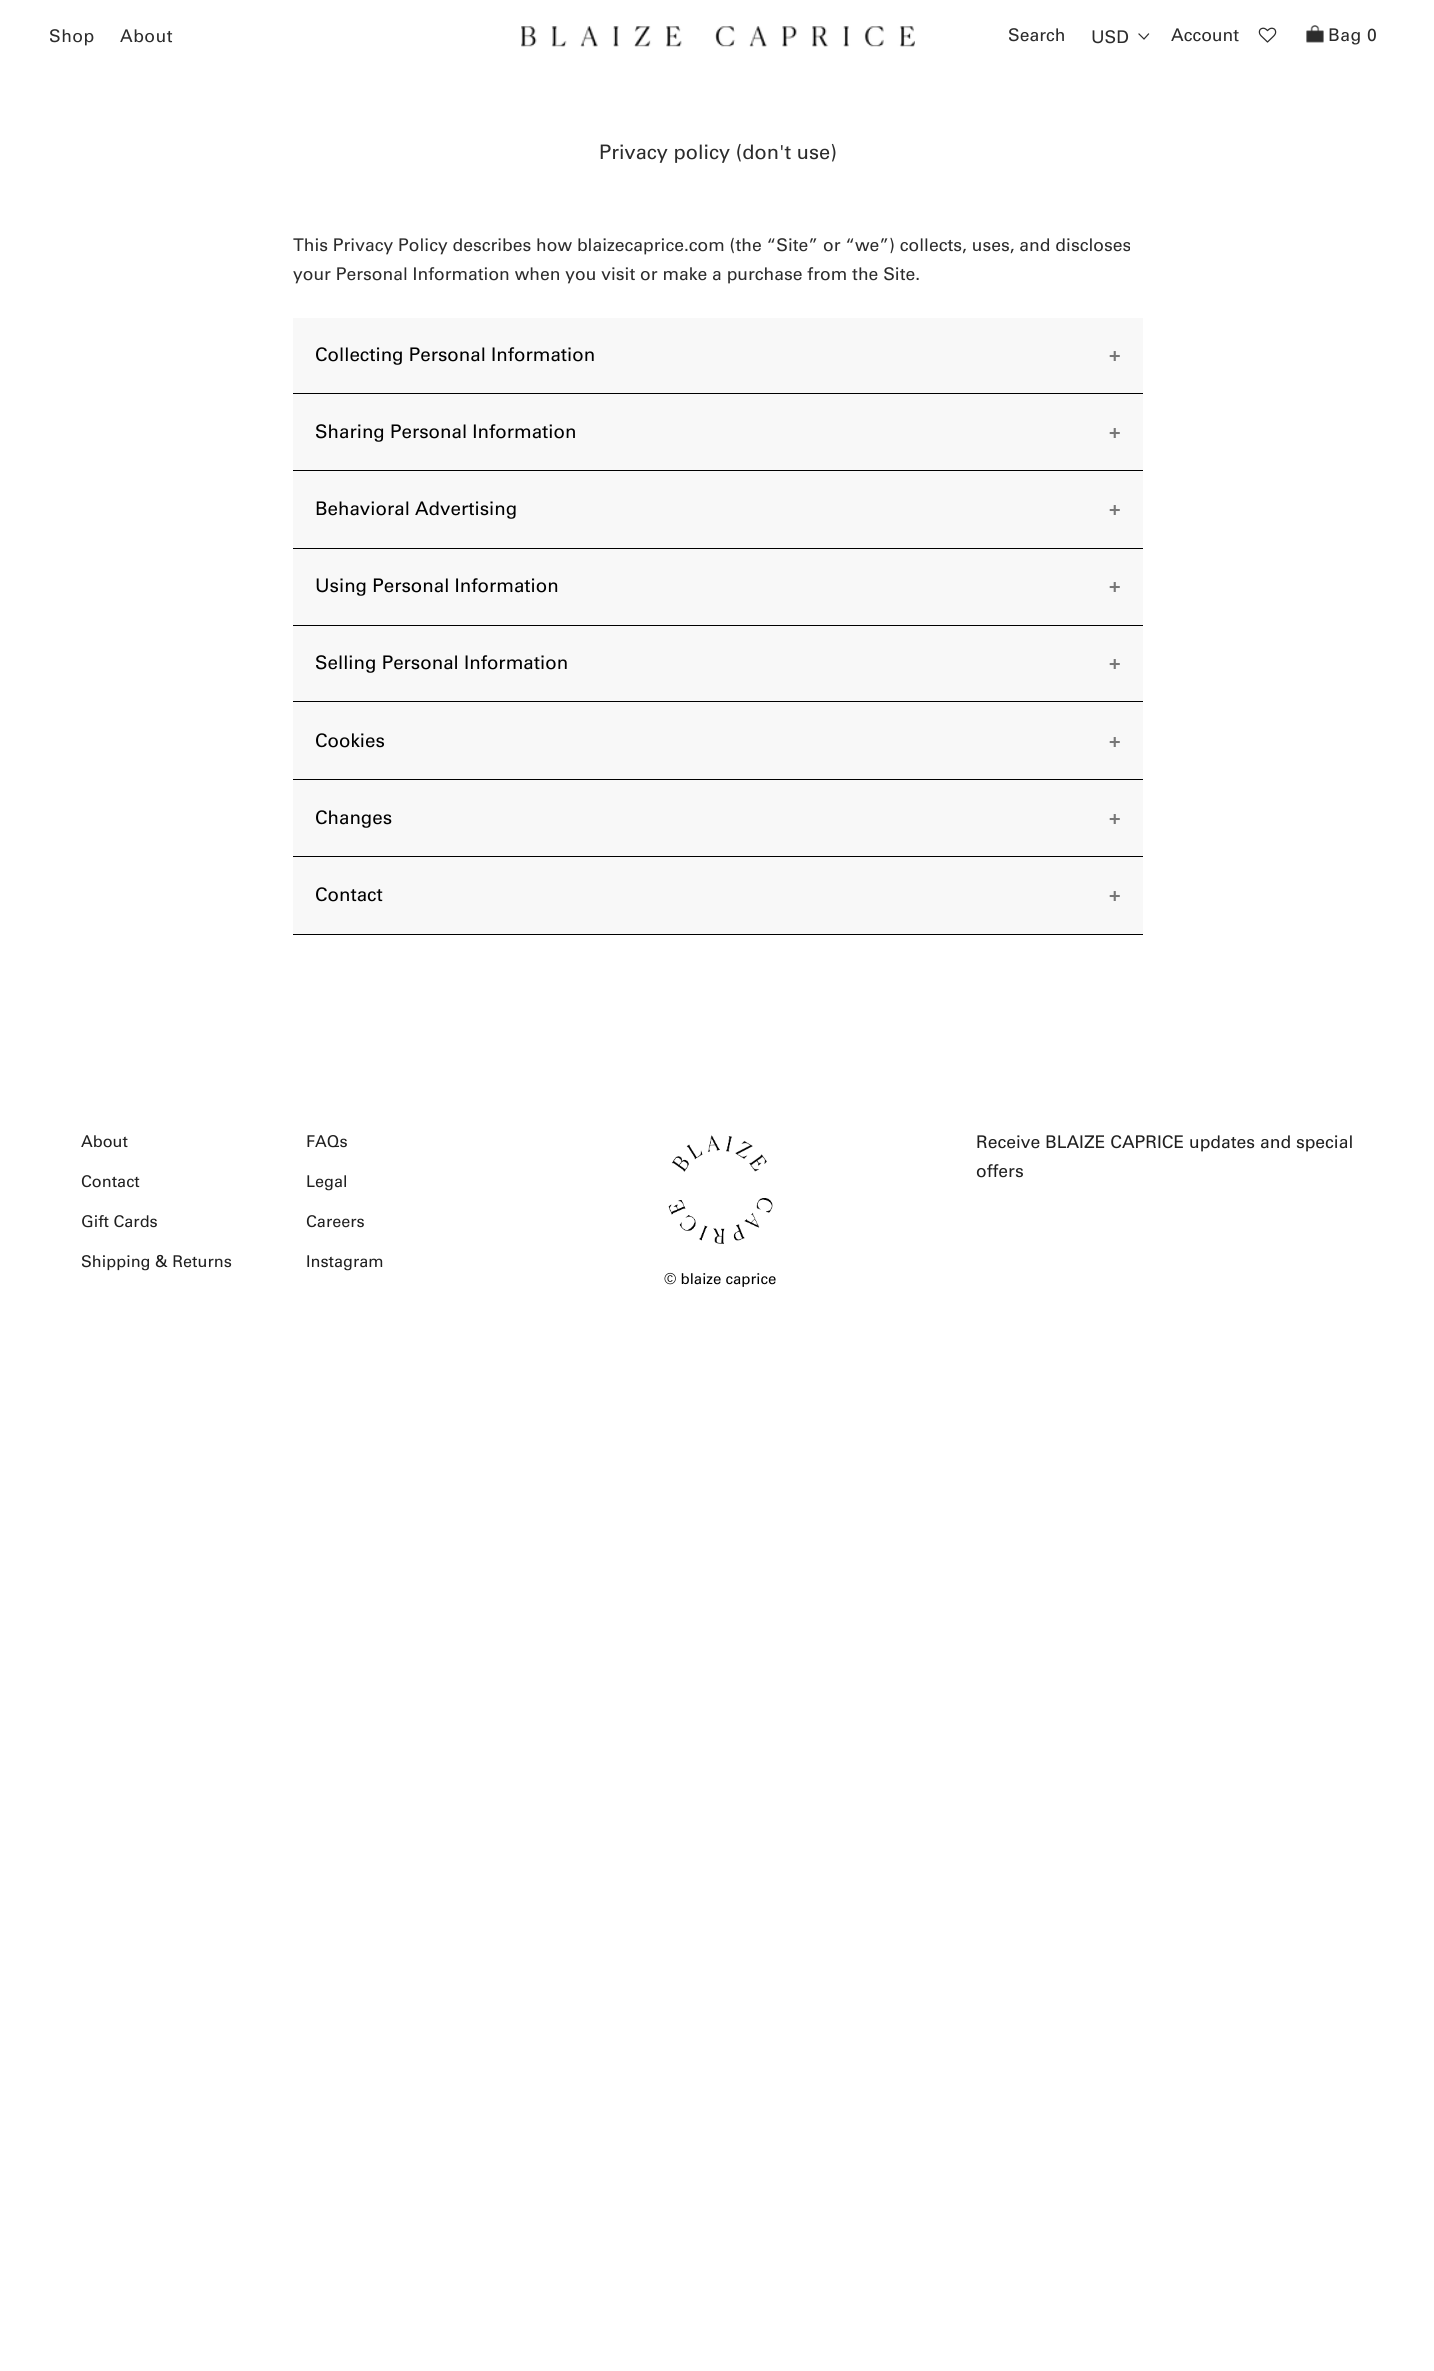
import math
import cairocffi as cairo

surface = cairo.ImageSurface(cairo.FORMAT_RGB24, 1434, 2371)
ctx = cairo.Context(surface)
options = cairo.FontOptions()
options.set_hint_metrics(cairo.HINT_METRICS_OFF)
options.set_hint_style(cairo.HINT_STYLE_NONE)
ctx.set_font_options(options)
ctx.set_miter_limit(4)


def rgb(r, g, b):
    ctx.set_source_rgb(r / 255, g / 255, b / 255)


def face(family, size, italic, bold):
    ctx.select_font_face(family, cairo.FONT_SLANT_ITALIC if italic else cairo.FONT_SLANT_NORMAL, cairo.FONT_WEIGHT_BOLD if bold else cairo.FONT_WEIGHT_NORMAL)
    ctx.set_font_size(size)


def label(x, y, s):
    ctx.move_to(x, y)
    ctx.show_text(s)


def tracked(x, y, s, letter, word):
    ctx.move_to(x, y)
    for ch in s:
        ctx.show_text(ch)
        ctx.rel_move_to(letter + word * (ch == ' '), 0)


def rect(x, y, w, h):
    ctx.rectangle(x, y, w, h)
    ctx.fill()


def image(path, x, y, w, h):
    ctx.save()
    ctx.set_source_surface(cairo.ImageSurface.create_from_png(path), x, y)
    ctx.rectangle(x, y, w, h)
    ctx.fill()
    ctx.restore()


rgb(255, 255, 255)
ctx.paint()
face('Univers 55 Medium', 17.5, 0, 0)
rgb(44, 44, 44)
tracked(49, 42, 'Shop', 0.5, 0)
tracked(120, 42, 'About', 0.5, 0)
image('image0.png', 521, 26, 394, 21)
label(1008, 41, 'Search')
face('Univers', 17.5, 0, 0)
label(1091, 43, 'USD')
ctx.new_path()
ctx.move_to(1148.5, 34)
ctx.line_to(1144, 39)
ctx.line_to(1139, 34)
ctx.set_line_width(1.2)
ctx.set_line_cap(cairo.LINE_CAP_SQUARE)
ctx.stroke()
face('Univers 55 Medium', 17.5, 0, 0)
label(1171, 41, 'Account')
image('image1.png', 1258, 27, 19, 16)
image('image2.png', 1306, 25, 18, 18)
tracked(1328, 41, 'Bag 0', 0.5, 0)
face('Univers', 20, 0, 0)
label(599, 159, 'Privacy policy (don\'t use)')
face('Univers', 17.5, 0, 0)
label(293, 251, 'This Privacy Policy describes how blaizecaprice.com (the “Site” or “we”) collects, uses, and discloses')
label(293, 280, 'your Personal Information when you visit or make a purchase from the Site.')
rgb(248, 248, 248)
rect(293, 318, 850, 75)
rgb(0, 0, 0)
rect(293, 393, 850, 1)
face('Univers', 18.75, 0, 0)
label(315, 361, 'Collecting Personal Information')
face('Univers', 18.75, 0, 1)
rgb(119, 119, 119)
label(1109, 361, '+')
rgb(248, 248, 248)
rect(293, 394, 850, 76)
rgb(0, 0, 0)
rect(293, 470, 850, 1)
face('Univers', 18.75, 0, 0)
label(315, 438, 'Sharing Personal Information')
face('Univers', 18.75, 0, 1)
rgb(119, 119, 119)
label(1109, 438, '+')
rgb(248, 248, 248)
rect(293, 471, 850, 77)
rgb(0, 0, 0)
rect(293, 548, 850, 1)
face('Univers', 18.75, 0, 0)
label(315, 515, 'Behavioral Advertising')
face('Univers', 18.75, 0, 1)
rgb(119, 119, 119)
label(1109, 515, '+')
rgb(248, 248, 248)
rect(293, 549, 850, 76)
rgb(0, 0, 0)
rect(293, 625, 850, 1)
face('Univers', 18.75, 0, 0)
label(315, 592, 'Using Personal Information')
face('Univers', 18.75, 0, 1)
rgb(119, 119, 119)
label(1109, 592, '+')
rgb(248, 248, 248)
rect(293, 626, 850, 153)
rgb(0, 0, 0)
rect(293, 701, 850, 1)
face('Univers', 18.75, 0, 0)
label(315, 669, 'Selling Personal Information')
face('Univers', 18.75, 0, 1)
rgb(119, 119, 119)
label(1109, 669, '+')
rgb(0, 0, 0)
rect(293, 779, 850, 1)
face('Univers', 18.75, 0, 0)
label(315, 747, 'Cookies')
face('Univers', 18.75, 0, 1)
rgb(119, 119, 119)
label(1109, 747, '+')
rgb(248, 248, 248)
rect(293, 780, 850, 154)
rgb(0, 0, 0)
rect(293, 856, 850, 1)
face('Univers', 18.75, 0, 0)
label(315, 824, 'Changes')
face('Univers', 18.75, 0, 1)
rgb(119, 119, 119)
label(1109, 824, '+')
rgb(0, 0, 0)
rect(293, 934, 850, 1)
face('Univers', 18.75, 0, 0)
label(315, 901, 'Contact')
face('Univers', 18.75, 0, 1)
rgb(119, 119, 119)
label(1109, 901, '+')
face('Univers', 16.25, 0, 0)
rgb(32, 32, 32)
label(81, 1147, 'About')
label(81, 1187, 'Contact')
label(81, 1227, 'Gift Cards')
label(81, 1267, 'Shipping & Returns')
label(306, 1147, 'FAQs')
label(306, 1187, 'Legal')
label(306, 1227, 'Careers')
label(306, 1267, 'Instagram')
face('Univers', 17.5, 0, 0)
label(976, 1148, 'Receive BLAIZE CAPRICE updates and special')
label(976, 1177, 'offers')
image('image3.png', 668, 1135, 105, 109)
face('Univers', 15, 0, 0)
rgb(0, 0, 0)
label(664, 1284, '© blaize caprice')
surface.write_to_png('render.png')
